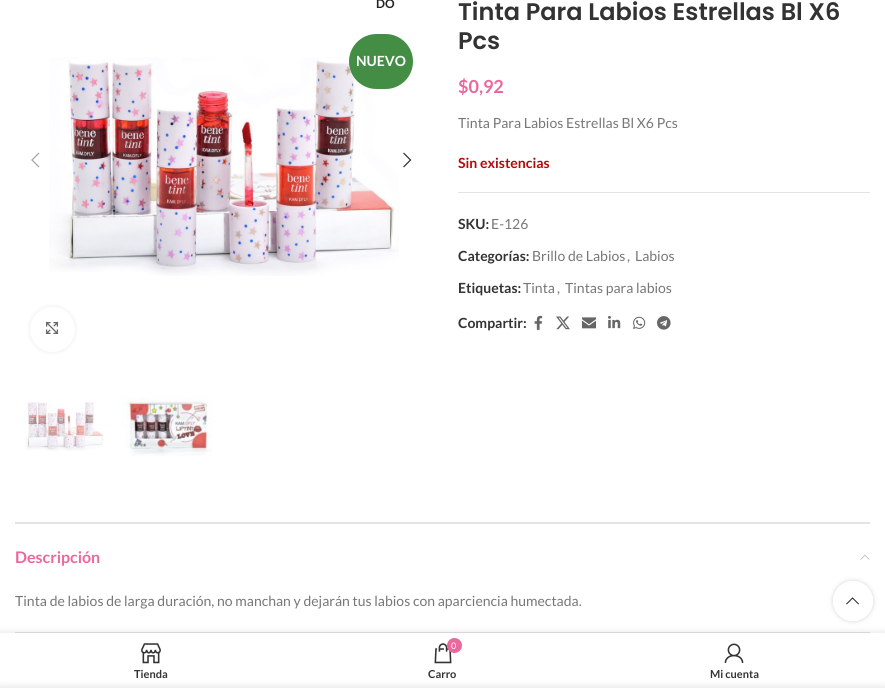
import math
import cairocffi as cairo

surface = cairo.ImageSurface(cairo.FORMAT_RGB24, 885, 688)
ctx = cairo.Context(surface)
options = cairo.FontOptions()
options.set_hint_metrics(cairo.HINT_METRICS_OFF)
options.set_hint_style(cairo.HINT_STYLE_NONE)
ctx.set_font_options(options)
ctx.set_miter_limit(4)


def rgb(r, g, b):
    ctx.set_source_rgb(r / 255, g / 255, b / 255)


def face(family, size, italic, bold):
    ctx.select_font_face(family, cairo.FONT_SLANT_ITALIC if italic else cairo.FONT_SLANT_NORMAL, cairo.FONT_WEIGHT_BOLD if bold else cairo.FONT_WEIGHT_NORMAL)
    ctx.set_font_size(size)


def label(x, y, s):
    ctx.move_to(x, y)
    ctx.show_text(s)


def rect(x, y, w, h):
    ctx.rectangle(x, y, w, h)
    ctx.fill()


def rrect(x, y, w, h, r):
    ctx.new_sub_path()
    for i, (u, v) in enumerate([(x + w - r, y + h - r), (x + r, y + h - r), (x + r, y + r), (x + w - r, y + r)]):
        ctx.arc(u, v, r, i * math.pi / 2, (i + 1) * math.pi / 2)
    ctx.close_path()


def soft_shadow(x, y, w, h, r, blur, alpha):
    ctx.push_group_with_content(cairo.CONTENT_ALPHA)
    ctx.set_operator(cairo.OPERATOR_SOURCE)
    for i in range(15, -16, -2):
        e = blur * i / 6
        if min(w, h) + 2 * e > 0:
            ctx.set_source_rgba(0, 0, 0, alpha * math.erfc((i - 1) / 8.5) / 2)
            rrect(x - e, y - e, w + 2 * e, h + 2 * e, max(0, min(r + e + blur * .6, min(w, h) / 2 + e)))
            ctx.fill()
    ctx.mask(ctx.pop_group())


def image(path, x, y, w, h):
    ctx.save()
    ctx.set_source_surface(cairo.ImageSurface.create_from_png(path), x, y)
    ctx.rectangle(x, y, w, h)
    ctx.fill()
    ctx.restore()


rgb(255, 255, 255)
ctx.paint()
face('Lato', 12, 0, 1)
rgb(36, 36, 36)
label(376, 8, 'DO')
image('image0.png', 49, 57, 350, 219)
rgb(67, 142, 68)
rrect(349, 34, 64, 55, 27.5)
ctx.fill()
face('Lato', 14, 0, 1)
rgb(255, 255, 255)
label(356, 66, 'NUEVO')
image('image1.png', 31, 152, 9, 16)
image('image2.png', 403, 152, 9, 16)
rgb(0, 0, 0)
soft_shadow(30, 307, 45, 45, 22.5, 2.5, 0.08)
rgb(255, 255, 255)
ctx.arc(52.5, 329.5, 22.5, 0, 2 * math.pi)
ctx.fill()
image('image3.png', 46, 322, 12, 12)
image('image4.png', 25, 402, 78, 49)
image('image5.png', 121, 397, 91, 59)
face('Poppins SemiBold', 24, 0, 0)
rgb(51, 51, 51)
label(458, 20, 'Tinta Para Labios Estrellas Bl X6')
label(458, 49, 'Pcs')
face('Lato', 18, 0, 1)
rgb(236, 104, 156)
label(458, 93, '$0,92')
face('Lato', 14, 0, 0)
rgb(119, 119, 119)
label(458, 128, 'Tinta Para Labios Estrellas Bl X6 Pcs')
face('Lato', 14, 0, 1)
rgb(181, 8, 8)
label(458, 168, 'Sin existencias')
rgb(228, 228, 228)
rect(458, 192, 412, 1)
rgb(51, 51, 51)
label(458, 229, 'SKU:')
face('Lato', 14, 0, 0)
rgb(119, 119, 119)
label(491, 229, 'E-126')
face('Lato', 14, 0, 1)
rgb(51, 51, 51)
label(458, 261, 'Categorías:')
face('Lato', 14, 0, 0)
rgb(119, 119, 119)
label(532, 261, 'Brillo de Labios')
label(627, 261, ',')
label(635, 261, 'Labios')
face('Lato', 14, 0, 1)
rgb(51, 51, 51)
label(458, 293, 'Etiquetas:')
face('Lato', 14, 0, 0)
rgb(119, 119, 119)
label(523, 293, 'Tinta')
label(557, 293, ',')
label(565, 293, 'Tintas para labios')
face('Lato', 14, 0, 1)
rgb(51, 51, 51)
label(458, 328, 'Compartir:')
image('image6.png', 534, 315, 9, 15)
image('image7.png', 556, 316, 14, 14)
image('image8.png', 582, 317, 14, 12)
image('image9.png', 608, 315, 13, 14)
image('image10.png', 633, 316, 13, 13)
image('image11.png', 657, 316, 14, 14)
rgb(228, 228, 228)
rect(15, 522, 855, 2)
rect(15, 632, 855, 1)
face('Lato', 16, 0, 1)
rgb(236, 104, 156)
label(15, 563, 'Descripción')
image('image12.png', 860, 554, 10, 6)
face('Lato', 14, 0, 0)
rgb(119, 119, 119)
label(15, 606, 'Tinta de labios de larga duración, no manchan y dejarán tus labios con aparciencia humectada.')
ctx.save()
ctx.set_fill_rule(cairo.FILL_RULE_EVEN_ODD)
ctx.new_path()
ctx.move_to(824, 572)
ctx.line_to(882, 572)
ctx.line_to(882, 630)
ctx.line_to(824, 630)
ctx.close_path()
ctx.move_to(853, 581)
ctx.curve_to(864, 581, 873, 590, 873, 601)
ctx.curve_to(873, 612, 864, 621, 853, 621)
ctx.curve_to(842, 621, 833, 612, 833, 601)
ctx.curve_to(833, 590, 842, 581, 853, 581)
ctx.close_path()
ctx.clip()
rgb(0, 0, 0)
soft_shadow(833, 581, 40, 40, 20, 2.5, 0.17)
ctx.restore()
ctx.set_source_rgba(1, 1, 1, 0.9)
ctx.arc(853, 601, 20, 0, 2 * math.pi)
ctx.fill()
image('image13.png', 846, 597, 13, 8)
rgb(0, 0, 0)
soft_shadow(0, 633, 885, 55, 0, 4.5, 0.12)
rgb(255, 255, 255)
rect(0, 633, 885, 55)
image('image14.png', 141, 643, 20, 21)
face('Lato', 11, 0, 1)
rgb(51, 51, 51)
label(134, 678, 'Tienda')
image('image15.png', 434, 643, 18, 21)
rgb(236, 104, 156)
ctx.arc(454.5, 645.5, 7.5, 0, 2 * math.pi)
ctx.fill()
face('Lato', 9, 0, 0)
rgb(255, 255, 255)
label(451, 649, '0')
face('Lato', 11, 0, 1)
rgb(51, 51, 51)
label(428, 678, 'Carro')
image('image16.png', 724, 643, 20, 20)
label(710, 678, 'Mi cuenta')
rgb(0, 0, 0)
soft_shadow(0, 688, 885, 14, 0, 4.5, 0.14)
surface.write_to_png('render.png')
